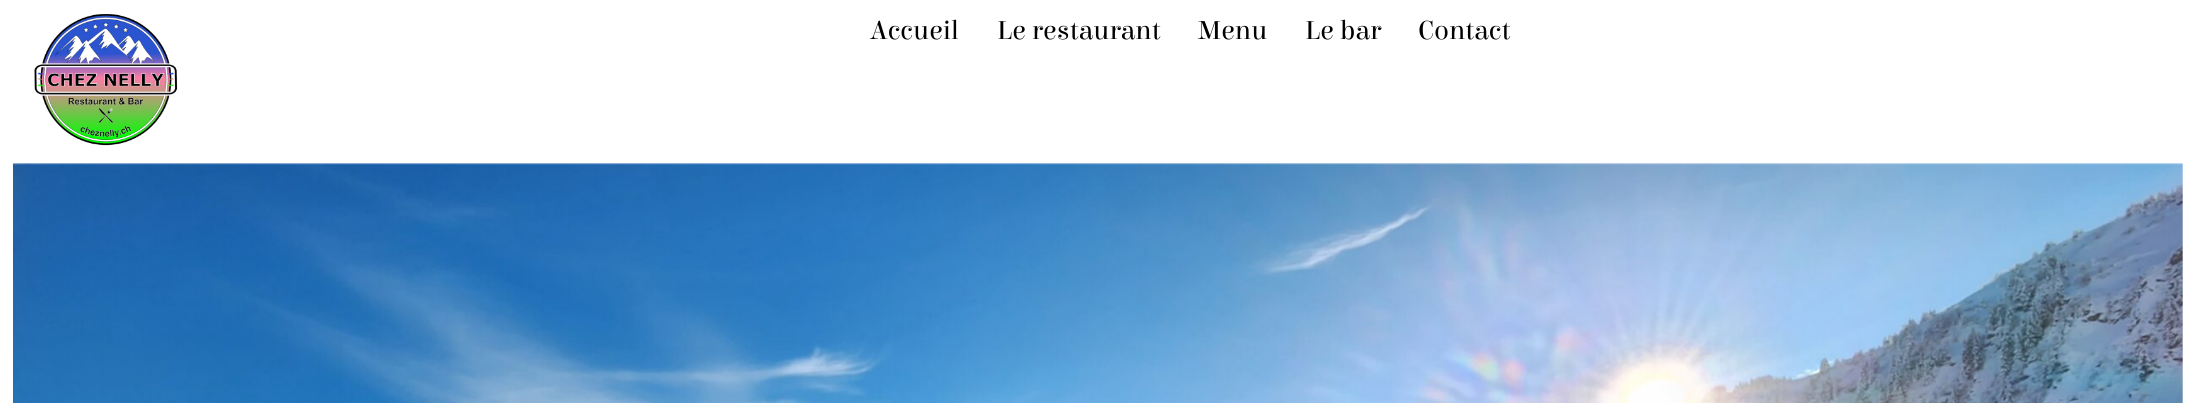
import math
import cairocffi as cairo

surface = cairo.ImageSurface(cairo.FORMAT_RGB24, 2194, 403)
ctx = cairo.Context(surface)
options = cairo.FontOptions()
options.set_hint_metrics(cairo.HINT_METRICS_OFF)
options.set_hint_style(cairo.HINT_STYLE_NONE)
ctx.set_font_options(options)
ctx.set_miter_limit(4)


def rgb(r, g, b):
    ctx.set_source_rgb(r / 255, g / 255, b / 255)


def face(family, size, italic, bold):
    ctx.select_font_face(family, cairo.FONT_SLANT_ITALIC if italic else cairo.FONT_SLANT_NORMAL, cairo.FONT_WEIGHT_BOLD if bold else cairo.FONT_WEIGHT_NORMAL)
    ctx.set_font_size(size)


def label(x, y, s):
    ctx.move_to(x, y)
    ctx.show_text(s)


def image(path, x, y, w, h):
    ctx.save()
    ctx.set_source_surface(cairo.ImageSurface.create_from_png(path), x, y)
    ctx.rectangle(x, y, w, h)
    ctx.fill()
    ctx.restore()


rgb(255, 255, 255)
ctx.paint()
image('image0.png', 34, 14, 144, 132)
face('Elsie', 27.5, 0, 0)
rgb(0, 0, 0)
label(870, 39, 'Accueil')
label(997, 39, 'Le restaurant')
label(1198, 39, 'Menu')
label(1305, 39, 'Le bar')
label(1418, 39, 'Contact')
image('image1.png', 13, 163, 2170, 240)
surface.write_to_png('render.png')
